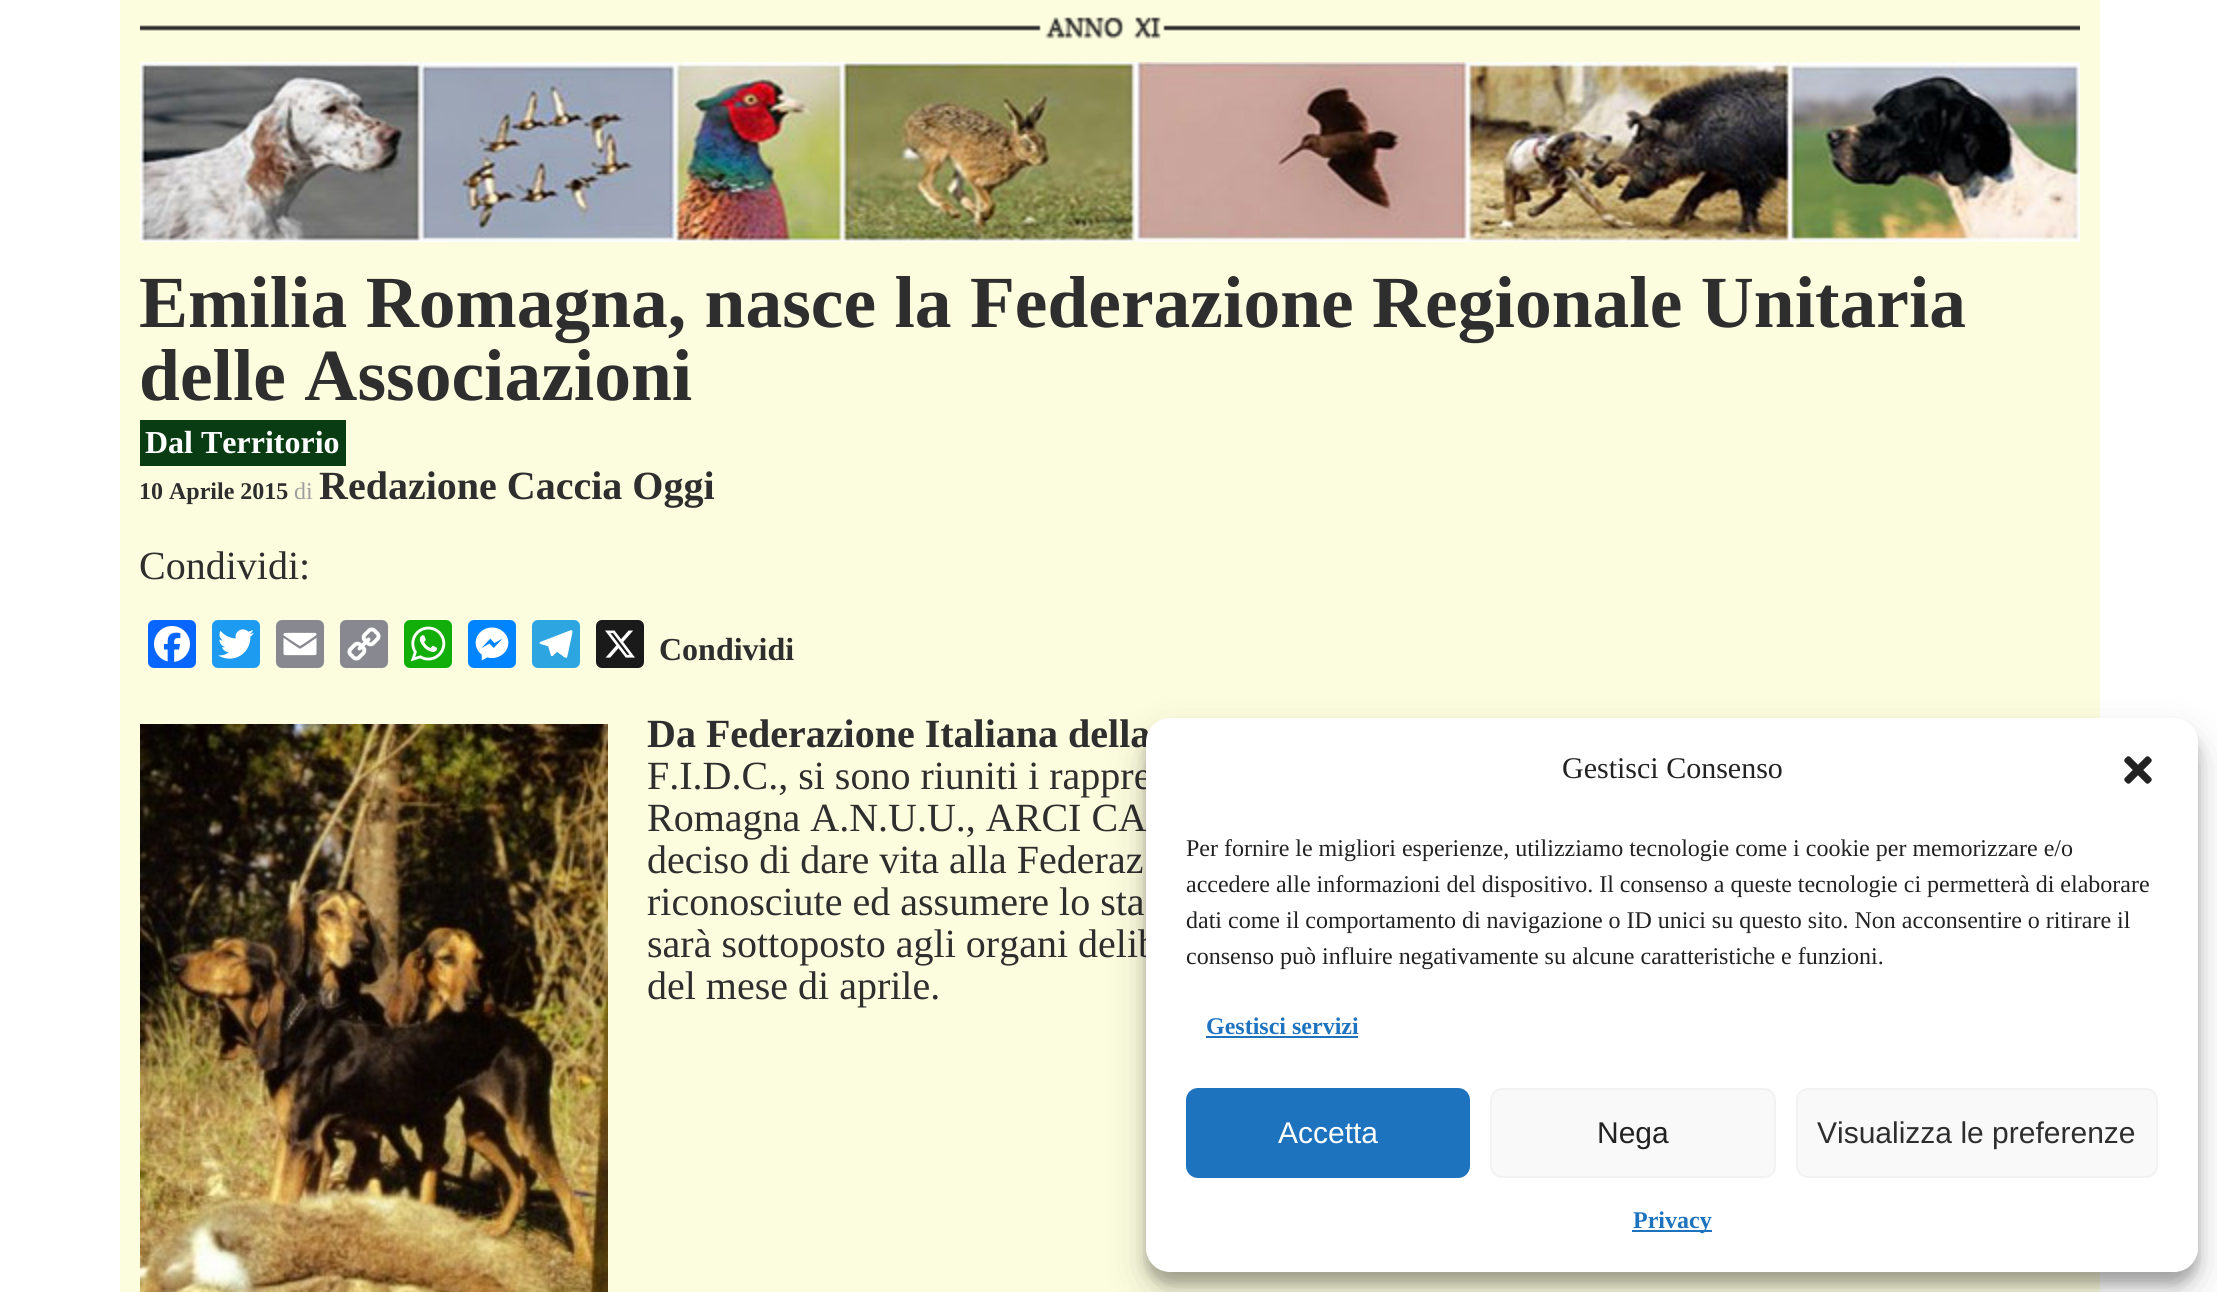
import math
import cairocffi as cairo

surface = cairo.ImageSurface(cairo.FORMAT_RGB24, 2217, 1292)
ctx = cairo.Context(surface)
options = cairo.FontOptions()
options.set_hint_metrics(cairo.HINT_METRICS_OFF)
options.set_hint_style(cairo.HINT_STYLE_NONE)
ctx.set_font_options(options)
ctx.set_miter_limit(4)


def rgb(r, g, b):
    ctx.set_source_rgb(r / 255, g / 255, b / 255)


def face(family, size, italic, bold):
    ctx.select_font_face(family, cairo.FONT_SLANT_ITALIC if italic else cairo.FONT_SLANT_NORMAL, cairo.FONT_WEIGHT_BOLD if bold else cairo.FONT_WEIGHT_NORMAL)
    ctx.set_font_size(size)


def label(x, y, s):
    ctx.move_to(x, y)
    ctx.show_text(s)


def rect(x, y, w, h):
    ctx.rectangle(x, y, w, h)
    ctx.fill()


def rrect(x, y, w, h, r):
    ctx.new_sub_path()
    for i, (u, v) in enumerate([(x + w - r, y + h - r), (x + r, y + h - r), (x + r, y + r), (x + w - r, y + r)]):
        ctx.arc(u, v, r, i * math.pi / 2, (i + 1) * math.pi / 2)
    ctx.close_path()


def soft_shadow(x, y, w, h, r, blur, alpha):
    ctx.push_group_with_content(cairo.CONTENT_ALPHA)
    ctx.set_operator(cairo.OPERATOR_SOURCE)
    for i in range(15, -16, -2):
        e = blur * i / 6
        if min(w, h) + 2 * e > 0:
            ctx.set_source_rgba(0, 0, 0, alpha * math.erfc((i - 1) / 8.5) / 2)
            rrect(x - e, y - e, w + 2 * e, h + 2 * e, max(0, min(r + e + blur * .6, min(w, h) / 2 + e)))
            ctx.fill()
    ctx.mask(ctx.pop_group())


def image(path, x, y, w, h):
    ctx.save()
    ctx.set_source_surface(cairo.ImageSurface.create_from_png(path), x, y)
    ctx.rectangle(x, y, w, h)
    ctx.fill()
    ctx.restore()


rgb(255, 255, 255)
ctx.paint()
rgb(252, 252, 222)
rect(120, 0, 1980, 1292)
image('image0.png', 140, 17, 1940, 22)
image('image1.png', 140, 62, 1940, 180)
face('Liberation Serif', 73.5, 0, 1)
rgb(46, 46, 46)
label(139, 327, 'Emilia Romagna, nasce la Federazione Regionale Unitaria')
label(139, 400, 'delle Associazioni')
rgb(9, 60, 19)
rect(140, 420, 206, 46)
face('Liberation Serif', 32, 0, 1)
rgb(255, 255, 255)
label(145, 453, 'Dal Territorio')
face('Liberation Serif', 24, 0, 1)
rgb(46, 46, 46)
label(139, 499, '10 Aprile 2015')
face('Liberation Serif', 24, 0, 0)
rgb(159, 159, 159)
label(294, 499, 'di')
face('Liberation Serif', 40, 0, 1)
rgb(46, 46, 46)
label(319, 499, 'Redazione Caccia Oggi')
face('Liberation Serif', 40, 0, 0)
label(139, 579, 'Condividi:')
rgb(8, 102, 255)
rrect(148, 620, 48, 48, 6)
ctx.fill()
image('image2.png', 154, 626, 36, 36)
rgb(29, 155, 240)
rrect(212, 620, 48, 48, 6)
ctx.fill()
image('image3.png', 218, 629, 36, 30)
rgb(136, 137, 144)
rrect(276, 620, 48, 48, 6)
ctx.fill()
image('image4.png', 283, 632, 34, 24)
rrect(340, 620, 48, 48, 6)
ctx.fill()
image('image5.png', 347, 627, 34, 34)
rgb(18, 175, 10)
rrect(404, 620, 48, 48, 6)
ctx.fill()
image('image6.png', 410, 626, 36, 36)
rgb(0, 132, 255)
rrect(468, 620, 48, 48, 6)
ctx.fill()
image('image7.png', 475, 627, 34, 34)
rgb(44, 165, 224)
rrect(532, 620, 48, 48, 6)
ctx.fill()
image('image8.png', 539, 630, 34, 28)
rgb(26, 26, 26)
rrect(596, 620, 48, 48, 6)
ctx.fill()
image('image9.png', 605, 630, 30, 28)
face('Liberation Serif', 32, 0, 1)
rgb(46, 46, 46)
label(659, 660, 'Condividi')
image('image10.png', 140, 724, 468, 568)
face('Liberation Serif', 40, 0, 1)
label(647, 747, 'Da Federazione Italiana della')
face('Liberation Serif', 40, 0, 0)
label(647, 789, 'F.I.D.C., si sono riuniti i rappre')
label(647, 831, 'Romagna A.N.U.U., ARCI CA')
label(647, 873, 'deciso di dare vita alla Federaz')
label(647, 915, 'riconosciute ed assumere lo sta')
label(647, 957, 'sarà sottoposto agli organi delib')
label(647, 999, 'del mese di aprile.')
rgb(0, 0, 0)
soft_shadow(1146, 730, 1052, 554, 24, 6, 0.23)
soft_shadow(1146, 738, 1052, 554, 24, 20, 0.19)
rgb(255, 255, 255)
rrect(1146, 718, 1052, 554, 24)
ctx.fill()
face('Liberation Serif', 30, 0, 0)
rgb(34, 34, 34)
label(1562, 778, 'Gestisci Consenso')
image('image11.png', 2124, 756, 28, 28)
face('Liberation Serif', 24, 0, 0)
label(1186, 856, 'Per fornire le migliori esperienze, utilizziamo tecnologie come i cookie per memorizzare e/o')
label(1186, 892, 'accedere alle informazioni del dispositivo. Il consenso a queste tecnologie ci permetterà di elaborare')
label(1186, 928, 'dati come il comportamento di navigazione o ID unici su questo sito. Non acconsentire o ritirare il')
label(1186, 964, 'consenso può influire negativamente su alcune caratteristiche e funzioni.')
face('Liberation Serif', 24, 0, 1)
rgb(30, 115, 190)
label(1206, 1034, 'Gestisci servizi')
rect(1206, 1036, 152, 2)
rrect(1187, 1089, 282, 88, 11)
ctx.fill_preserve()
ctx.stroke()
face('Liberation Sans', 30, 0, 0)
rgb(255, 255, 255)
label(1278, 1143, 'Accetta')
rgb(249, 249, 249)
rrect(1491, 1089, 284, 88, 11)
ctx.fill_preserve()
rgb(242, 242, 242)
ctx.stroke()
rgb(34, 34, 34)
label(1597, 1143, 'Nega')
rgb(249, 249, 249)
rrect(1797, 1089, 360, 88, 11)
ctx.fill_preserve()
rgb(242, 242, 242)
ctx.stroke()
rgb(46, 46, 46)
label(1817, 1143, 'Visualizza le preferenze')
rgb(30, 115, 190)
rect(1632, 1230, 80, 2)
face('Liberation Serif', 24, 0, 1)
label(1633, 1228, 'Privacy')
surface.write_to_png('render.png')
